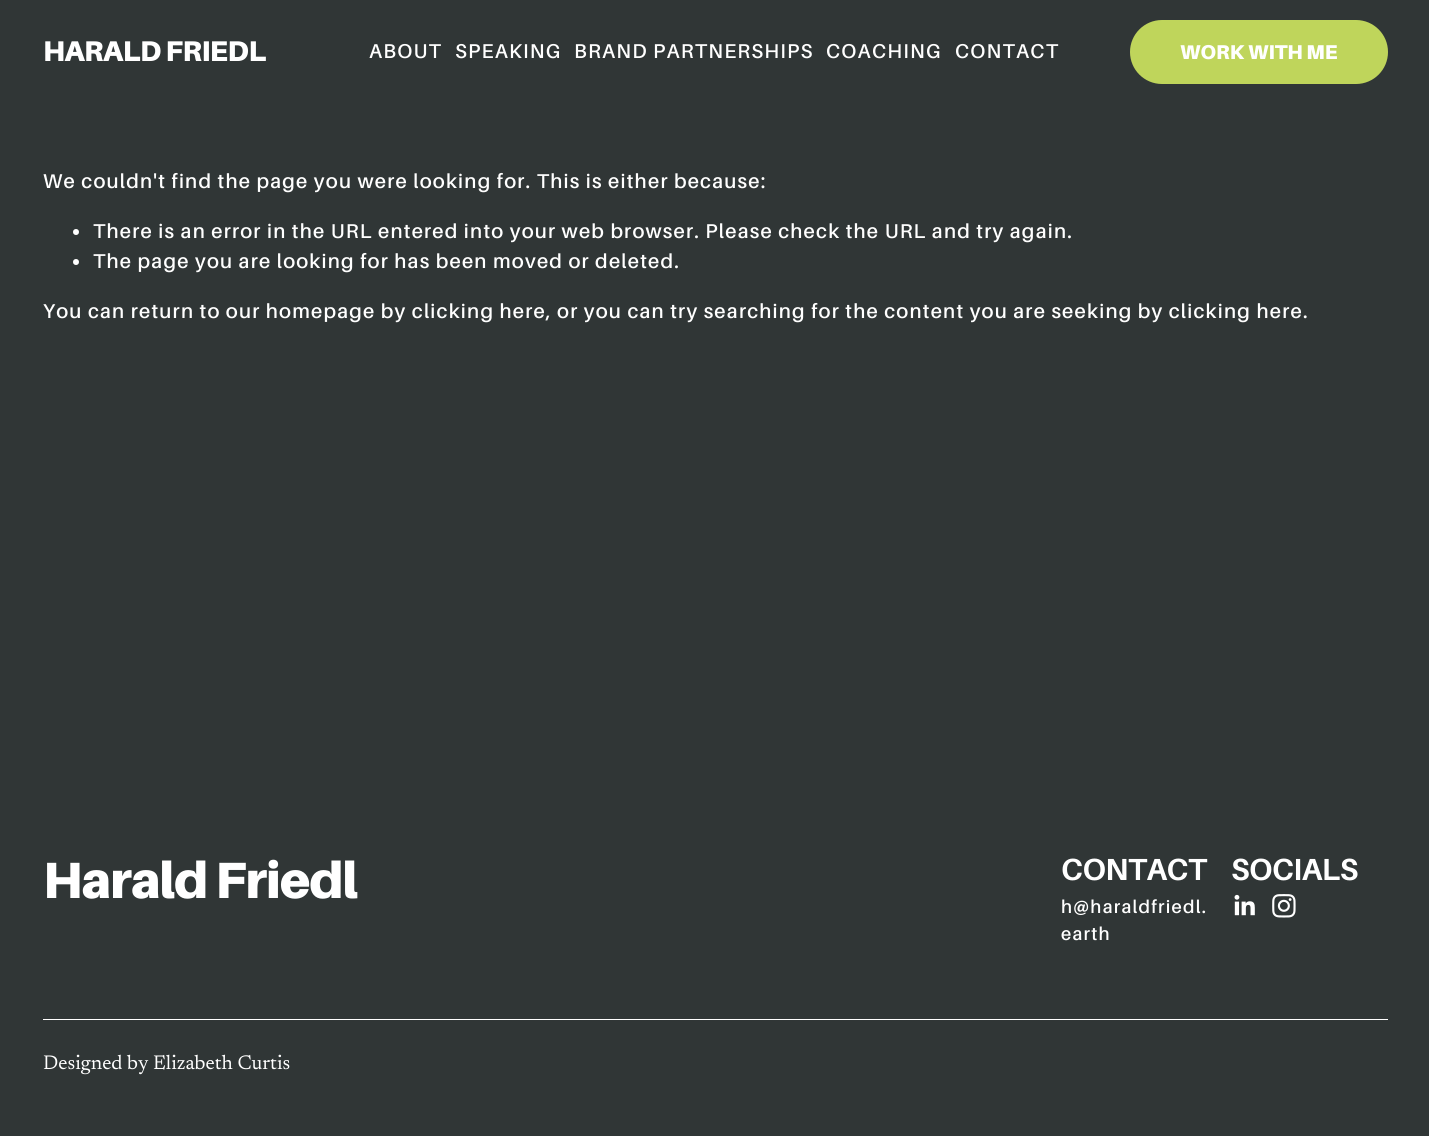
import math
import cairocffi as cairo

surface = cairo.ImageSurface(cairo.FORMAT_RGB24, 1429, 1136)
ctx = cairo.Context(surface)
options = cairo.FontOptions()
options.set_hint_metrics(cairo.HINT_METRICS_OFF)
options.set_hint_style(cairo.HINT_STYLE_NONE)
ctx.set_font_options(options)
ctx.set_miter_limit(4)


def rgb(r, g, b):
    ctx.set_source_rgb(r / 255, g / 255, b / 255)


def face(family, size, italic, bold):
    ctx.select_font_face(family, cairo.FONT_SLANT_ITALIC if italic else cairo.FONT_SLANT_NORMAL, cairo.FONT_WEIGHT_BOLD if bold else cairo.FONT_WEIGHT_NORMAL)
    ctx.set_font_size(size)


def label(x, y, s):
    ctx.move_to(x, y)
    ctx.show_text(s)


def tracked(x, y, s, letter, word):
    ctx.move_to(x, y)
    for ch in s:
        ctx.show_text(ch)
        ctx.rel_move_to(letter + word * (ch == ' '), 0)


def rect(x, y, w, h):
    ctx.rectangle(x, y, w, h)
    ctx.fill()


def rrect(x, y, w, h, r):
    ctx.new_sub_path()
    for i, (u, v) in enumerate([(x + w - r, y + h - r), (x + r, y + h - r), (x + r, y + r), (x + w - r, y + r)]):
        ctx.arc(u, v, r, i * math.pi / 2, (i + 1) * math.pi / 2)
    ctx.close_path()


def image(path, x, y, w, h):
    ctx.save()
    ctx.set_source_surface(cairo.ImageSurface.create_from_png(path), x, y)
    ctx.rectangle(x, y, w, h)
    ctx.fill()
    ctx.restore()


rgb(48, 54, 54)
ctx.paint()
face('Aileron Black', 28.5, 0, 0)
rgb(255, 255, 255)
tracked(43, 61, 'HARALD FRIEDL', -0.5, 0)
face('Aileron SemiBold', 20, 0, 0)
tracked(369, 58, 'ABOUT', 1.2, 0)
tracked(455, 58, 'SPEAKING', 1.2, 0)
tracked(574, 58, 'BRAND PARTNERSHIPS', 1.2, 0)
tracked(826, 58, 'COACHING', 1.2, 0)
tracked(955, 58, 'CONTACT', 1.2, 0)
rgb(191, 213, 91)
rrect(1130, 20, 258, 64, 32)
ctx.fill()
face('Aileron Black', 20, 0, 0)
rgb(255, 255, 255)
label(1180, 59, 'WORK WITH ME')
face('Aileron SemiBold', 20, 0, 0)
tracked(43, 188, 'We couldn\'t find the page you were looking for. This is either because:', 1.2, 0)
ctx.new_path()
ctx.arc(76, 232, 3, 0, 2 * math.pi)
ctx.fill()
tracked(93, 238, 'There is an error in the URL entered into your web browser. Please check the URL and try again.', 1.2, 0)
ctx.new_path()
ctx.arc(76, 262, 3, 0, 2 * math.pi)
ctx.fill()
tracked(93, 268, 'The page you are looking for has been moved or deleted.', 1.2, 0)
tracked(43, 318, 'You can return to our homepage by clicking here, or you can try searching for the content you are seeking by clicking here.', 1.2, 0)
face('Aileron Black', 51, 0, 0)
tracked(43, 898, 'Harald Friedl', -1, 0)
face('Aileron', 30.5, 0, 1)
tracked(1061, 880, 'CONTACT', -0.5, 0)
tracked(1231, 880, 'SOCIALS', -0.5, 0)
face('Aileron SemiBold', 18.25, 0, 0)
tracked(1061, 913, 'h@haraldfriedl.', 1.2, 0)
tracked(1061, 940, 'earth', 1.2, 0)
image('image0.png', 1234, 894, 21, 22)
image('image1.png', 1272, 894, 24, 24)
rect(43, 1019, 1345, 1)
face('Newsreader', 20, 0, 0)
label(43, 1069, 'Designed by Elizabeth Curtis')
surface.write_to_png('render.png')
